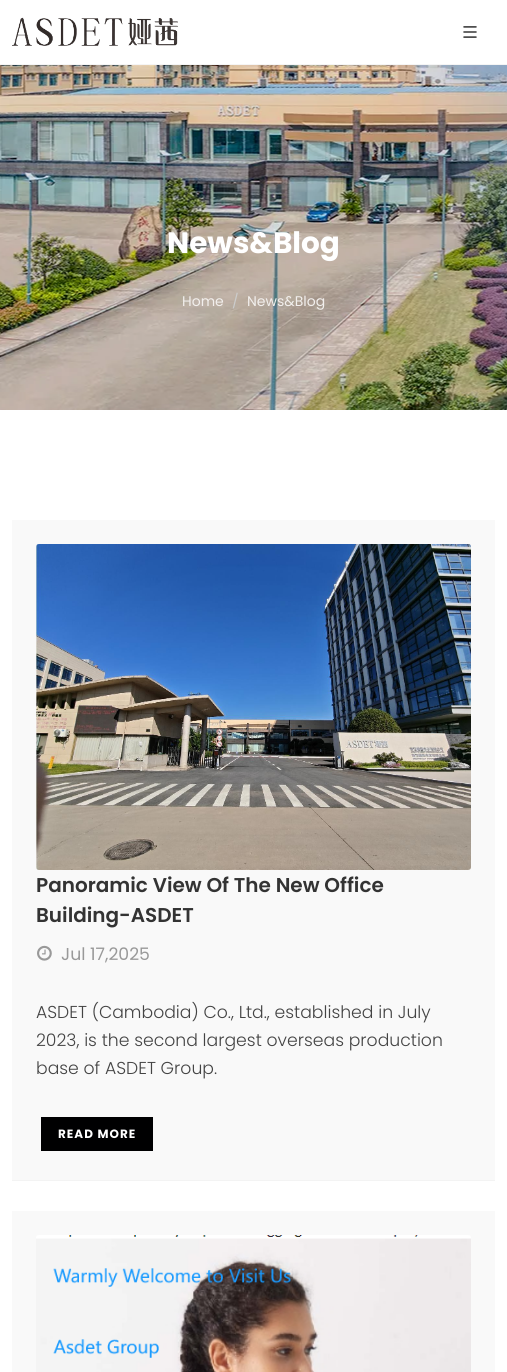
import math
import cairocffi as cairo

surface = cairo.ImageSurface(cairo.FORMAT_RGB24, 507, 1372)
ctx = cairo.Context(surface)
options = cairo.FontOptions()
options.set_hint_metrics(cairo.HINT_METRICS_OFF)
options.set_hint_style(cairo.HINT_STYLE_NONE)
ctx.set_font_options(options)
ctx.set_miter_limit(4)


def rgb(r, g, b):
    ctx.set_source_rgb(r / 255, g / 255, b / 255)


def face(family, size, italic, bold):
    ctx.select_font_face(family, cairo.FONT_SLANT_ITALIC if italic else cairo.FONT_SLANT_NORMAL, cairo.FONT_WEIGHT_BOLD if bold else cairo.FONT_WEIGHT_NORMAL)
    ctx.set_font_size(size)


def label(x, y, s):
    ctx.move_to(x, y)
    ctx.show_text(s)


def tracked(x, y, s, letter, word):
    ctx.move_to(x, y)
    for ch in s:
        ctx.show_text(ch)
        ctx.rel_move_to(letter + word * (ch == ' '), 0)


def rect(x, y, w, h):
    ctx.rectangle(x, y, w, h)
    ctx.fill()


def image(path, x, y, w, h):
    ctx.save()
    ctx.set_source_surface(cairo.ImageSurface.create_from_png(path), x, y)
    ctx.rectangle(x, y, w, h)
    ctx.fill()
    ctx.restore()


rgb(255, 255, 255)
ctx.paint()
rgb(245, 245, 245)
rect(0, 64, 507, 1)
image('image0.png', 12, 17, 166, 29)
image('image1.png', 463, 26, 14, 12)
image('image2.png', 0, 65, 507, 345)
face('Poppins', 29.5, 0, 1)
rgb(255, 255, 255)
label(167, 253, 'News&Blog')
face('Poppins', 14, 0, 0)
rgb(242, 239, 237)
label(182, 306, 'Home')
rgb(204, 204, 204)
label(232, 306, '/')
rgb(242, 239, 237)
label(247, 306, 'News&Blog')
rgb(249, 249, 249)
rect(12, 520, 483, 660)
rgb(243, 243, 243)
rect(12, 1180, 483, 1)
image('image3.png', 36, 544, 435, 326)
face('Poppins SemiBold', 20, 0, 0)
rgb(51, 51, 51)
label(36, 892, 'Panoramic View Of The New Office')
label(36, 922, 'Building-ASDET')
image('image4.png', 37, 945, 15, 16)
face('Poppins', 17.25, 0, 0)
rgb(153, 153, 153)
label(61, 960, 'Jul 17,2025')
face('Poppins Light', 17.25, 0, 0)
rgb(68, 68, 68)
label(36, 1018, 'ASDET (Cambodia) Co., Ltd., established in July')
label(36, 1046, '2023, is the second largest overseas production')
label(36, 1074, 'base of ASDET Group.')
rgb(0, 0, 1)
rect(41, 1117, 112, 34)
face('Poppins', 12, 0, 1)
rgb(255, 255, 255)
tracked(58, 1138, 'READ MORE', 1, 0)
rgb(249, 249, 249)
rect(12, 1211, 483, 161)
image('image5.png', 36, 1235, 435, 137)
surface.write_to_png('render.png')
